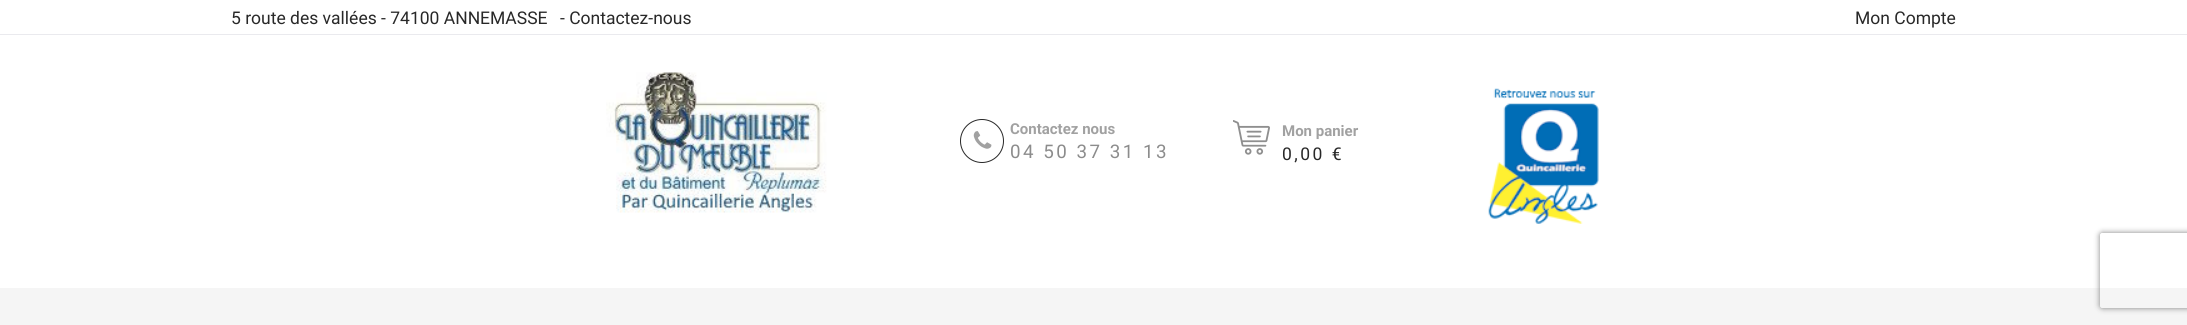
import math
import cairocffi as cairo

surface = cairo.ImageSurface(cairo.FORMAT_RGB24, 2187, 325)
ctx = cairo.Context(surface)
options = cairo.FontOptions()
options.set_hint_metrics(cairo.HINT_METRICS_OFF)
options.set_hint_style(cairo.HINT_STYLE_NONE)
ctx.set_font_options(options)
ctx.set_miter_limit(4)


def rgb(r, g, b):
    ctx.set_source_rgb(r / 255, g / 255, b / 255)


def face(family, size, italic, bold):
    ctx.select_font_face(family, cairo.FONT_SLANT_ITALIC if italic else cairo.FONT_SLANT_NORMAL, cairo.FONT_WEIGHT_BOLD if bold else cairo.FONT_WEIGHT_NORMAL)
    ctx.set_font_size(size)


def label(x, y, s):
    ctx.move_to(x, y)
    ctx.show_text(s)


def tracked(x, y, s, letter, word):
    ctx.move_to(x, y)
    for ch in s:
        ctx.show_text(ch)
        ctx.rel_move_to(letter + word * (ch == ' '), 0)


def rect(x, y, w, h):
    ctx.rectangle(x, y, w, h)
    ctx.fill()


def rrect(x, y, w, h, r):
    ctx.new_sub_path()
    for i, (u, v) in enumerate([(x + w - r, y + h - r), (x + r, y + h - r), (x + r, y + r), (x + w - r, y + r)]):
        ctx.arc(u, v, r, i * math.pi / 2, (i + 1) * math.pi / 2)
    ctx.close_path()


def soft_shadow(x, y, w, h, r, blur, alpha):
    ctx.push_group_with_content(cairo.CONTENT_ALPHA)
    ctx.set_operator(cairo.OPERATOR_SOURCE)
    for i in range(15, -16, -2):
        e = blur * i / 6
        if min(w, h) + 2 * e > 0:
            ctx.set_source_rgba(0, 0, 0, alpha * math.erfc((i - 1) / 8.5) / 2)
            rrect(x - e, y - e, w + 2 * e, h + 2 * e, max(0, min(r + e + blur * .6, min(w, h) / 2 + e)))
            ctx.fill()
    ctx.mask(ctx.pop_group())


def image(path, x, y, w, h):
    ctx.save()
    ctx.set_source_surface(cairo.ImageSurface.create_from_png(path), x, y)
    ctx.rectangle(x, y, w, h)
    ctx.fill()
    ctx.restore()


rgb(245, 245, 245)
ctx.paint()
rgb(255, 255, 255)
rect(0, 0, 2187, 288)
rgb(234, 234, 238)
rect(0, 34, 2187, 1)
face('Roboto', 17.5, 0, 0)
rgb(40, 40, 40)
label(231, 24, '5 route des vallées - 74100 ANNEMASSE')
label(560, 24, '- Contactez-nous')
label(1855, 24, 'Mon Compte')
image('image0.png', 606, 72, 221, 141)
ctx.arc(982, 141, 21.5, 0, 2 * math.pi)
ctx.set_line_width(1)
ctx.stroke()
image('image1.png', 973, 131, 19, 18)
face('Roboto', 15, 0, 1)
rgb(161, 161, 161)
label(1010, 134, 'Contactez nous')
face('Roboto', 18.75, 0, 0)
rgb(140, 140, 140)
tracked(1010, 158, '04 50 37 31 13', 2.5, 0)
image('image2.png', 1233, 120, 37, 35)
face('Roboto', 15, 0, 1)
rgb(161, 161, 161)
label(1282, 136, 'Mon panier')
face('Roboto', 17.5, 0, 0)
rgb(40, 40, 40)
tracked(1282, 160, '0,00 €', 2.5, 0)
image('image3.png', 1488, 88, 111, 136)
ctx.save()
ctx.set_fill_rule(cairo.FILL_RULE_EVEN_ODD)
ctx.new_path()
ctx.move_to(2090, 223)
ctx.line_to(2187, 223)
ctx.line_to(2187, 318)
ctx.line_to(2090, 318)
ctx.close_path()
ctx.move_to(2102.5, 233)
ctx.line_to(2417.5, 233)
ctx.curve_to(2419, 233, 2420, 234, 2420, 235.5)
ctx.line_to(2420, 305.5)
ctx.curve_to(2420, 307, 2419, 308, 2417.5, 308)
ctx.line_to(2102.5, 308)
ctx.curve_to(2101, 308, 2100, 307, 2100, 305.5)
ctx.line_to(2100, 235.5)
ctx.curve_to(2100, 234, 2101, 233, 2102.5, 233)
ctx.close_path()
ctx.clip()
rgb(128, 128, 128)
soft_shadow(2100, 233, 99, 75, 2.5, 3, 1)
ctx.restore()
surface.write_to_png('render.png')
